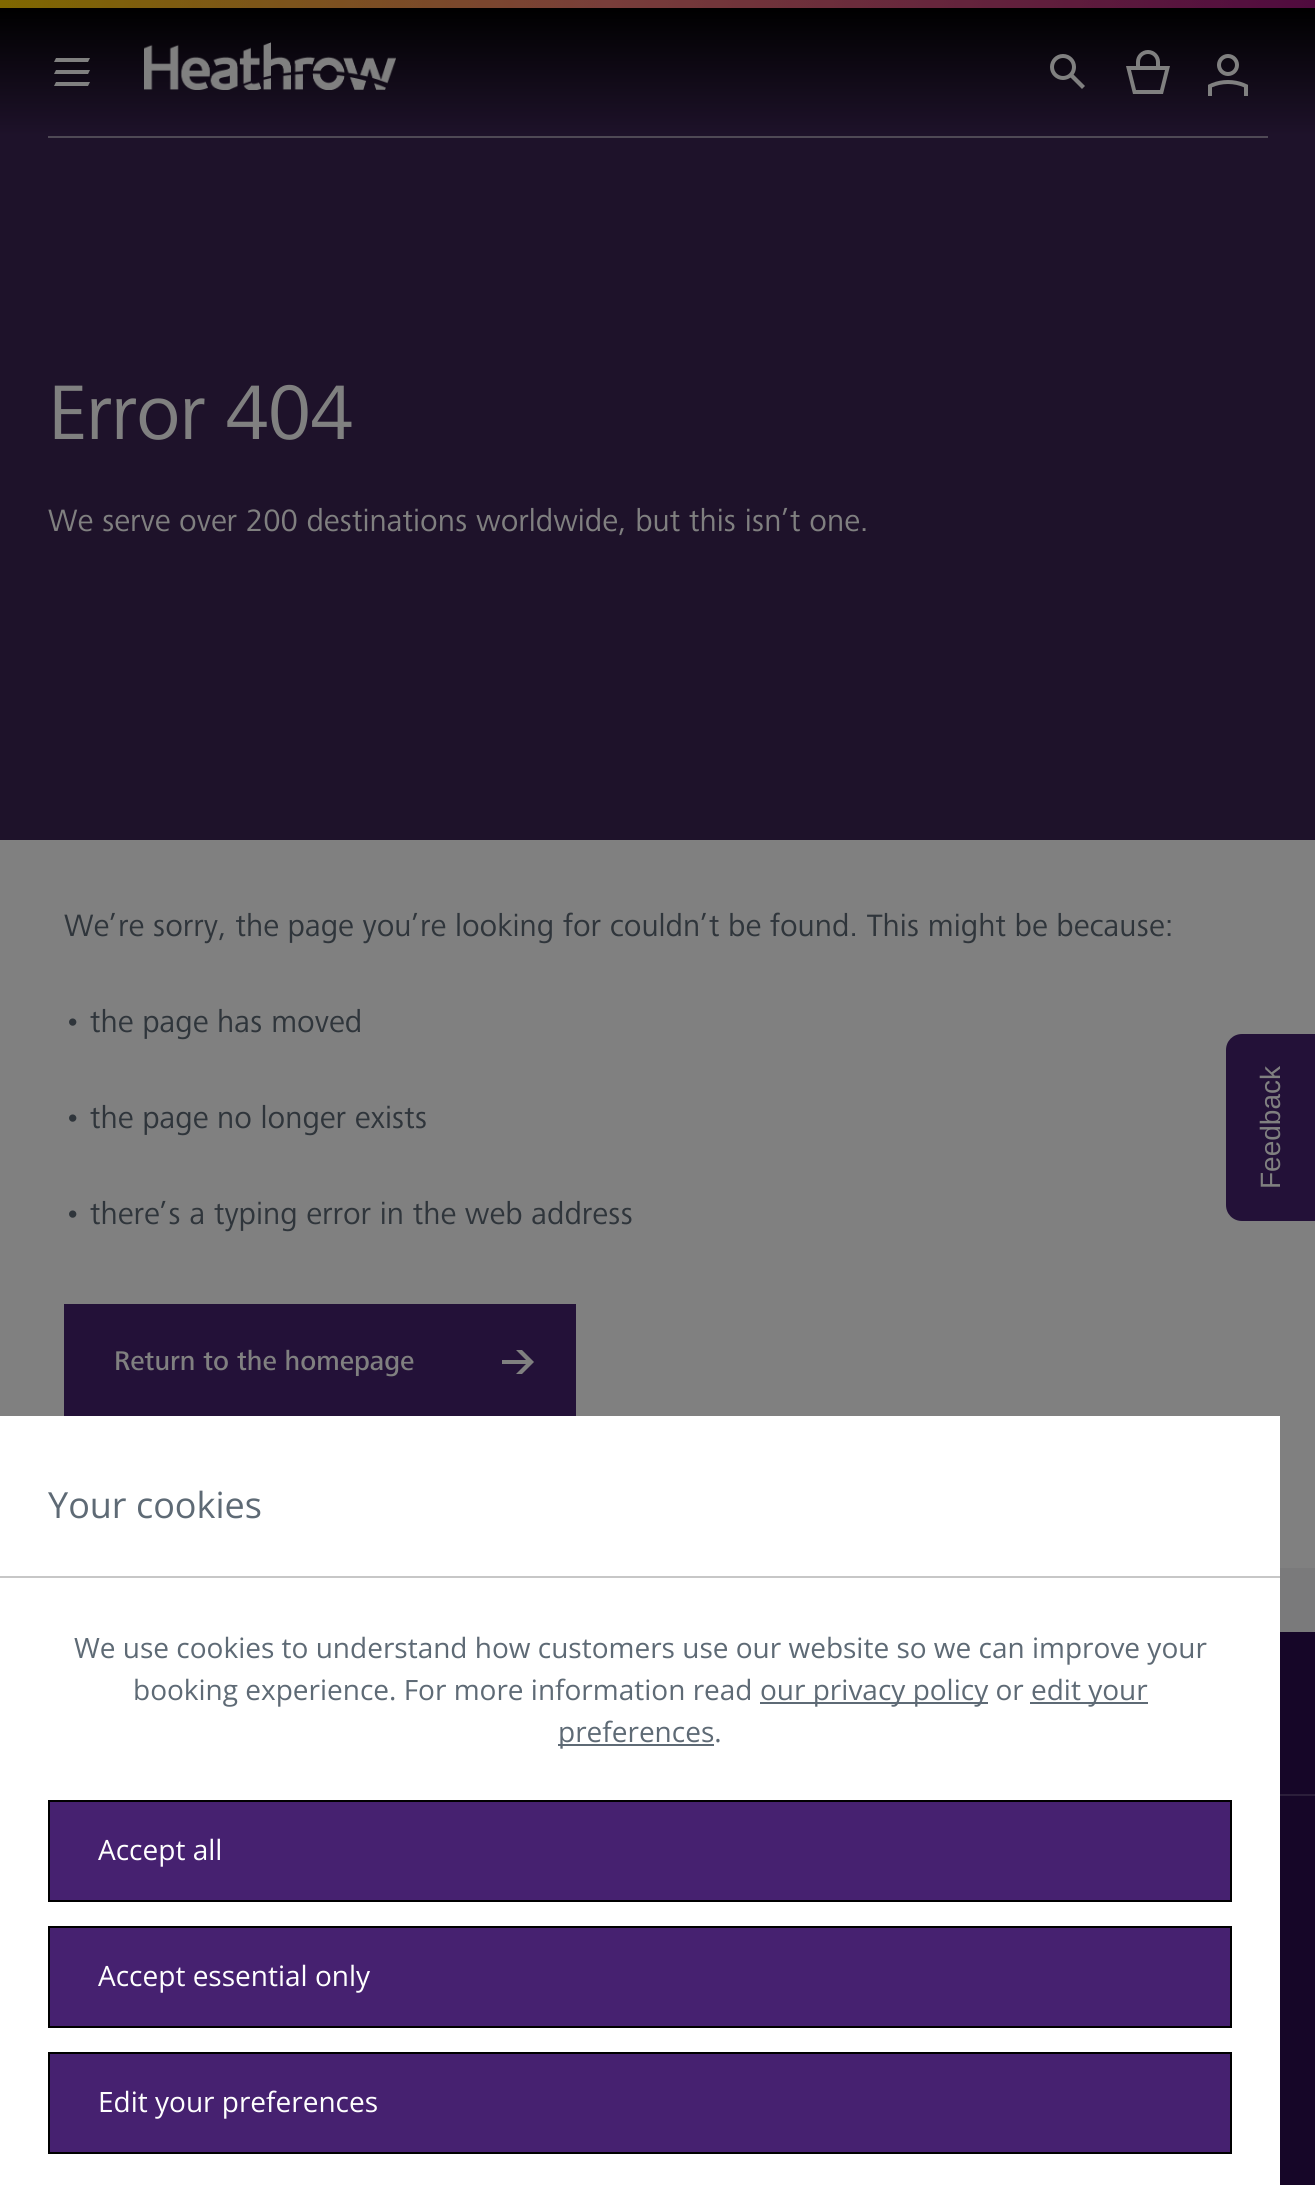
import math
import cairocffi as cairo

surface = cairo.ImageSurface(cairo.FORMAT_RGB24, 1315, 2185)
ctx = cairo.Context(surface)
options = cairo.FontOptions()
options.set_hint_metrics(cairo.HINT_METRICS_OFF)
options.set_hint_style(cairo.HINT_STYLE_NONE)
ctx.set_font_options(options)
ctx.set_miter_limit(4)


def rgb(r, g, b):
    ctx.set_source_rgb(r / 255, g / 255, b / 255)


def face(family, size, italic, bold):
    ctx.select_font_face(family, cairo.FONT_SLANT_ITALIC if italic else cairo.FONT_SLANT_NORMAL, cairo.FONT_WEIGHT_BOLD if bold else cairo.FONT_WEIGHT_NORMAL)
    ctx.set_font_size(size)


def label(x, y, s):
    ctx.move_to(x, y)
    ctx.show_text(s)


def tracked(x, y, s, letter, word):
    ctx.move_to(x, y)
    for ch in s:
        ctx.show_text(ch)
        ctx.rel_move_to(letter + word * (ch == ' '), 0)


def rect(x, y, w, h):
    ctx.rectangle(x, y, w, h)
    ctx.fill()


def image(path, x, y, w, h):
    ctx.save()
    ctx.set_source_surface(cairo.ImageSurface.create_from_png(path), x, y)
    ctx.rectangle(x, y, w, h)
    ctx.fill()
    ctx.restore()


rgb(122, 122, 123)
ctx.paint()
gradient = cairo.LinearGradient(658, 8, 658, 136)
gradient.add_color_stop_rgba(0, 0, 0, 0, 1)
gradient.add_color_stop_rgba(1, 0.118, 0.071, 0.165, 1)
ctx.set_source(gradient)
rect(0, 8, 1315, 128)
image('image0.png', 0, 0, 1315, 8)
rgb(30, 18, 42)
rect(0, 136, 1315, 704)
rgb(79, 73, 85)
rect(48, 136, 1220, 2)
rgb(128, 128, 128)
ctx.set_fill_rule(cairo.FILL_RULE_EVEN_ODD)
ctx.new_path()
ctx.move_to(56, 70)
ctx.line_to(90, 70)
ctx.line_to(88, 74)
ctx.line_to(54, 74)
ctx.close_path()
ctx.move_to(56, 82)
ctx.line_to(90, 82)
ctx.line_to(88, 86)
ctx.line_to(54, 86)
ctx.close_path()
ctx.move_to(56, 58)
ctx.line_to(90, 58)
ctx.line_to(88, 62)
ctx.line_to(54, 62)
ctx.close_path()
ctx.fill()
image('image1.png', 144, 42, 252, 48)
image('image2.png', 1050, 54, 35, 35)
image('image3.png', 1126, 50, 44, 44)
image('image4.png', 1208, 54, 40, 42)
face('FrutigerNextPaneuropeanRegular', 80, 0, 0)
tracked(48, 439, 'Error 404', -1, 0)
face('FrutigerNextPaneuropeanRegular', 32, 0, 0)
label(48, 531, 'We serve over 200 destinations worldwide, but this isn’t one.')
rect(0, 840, 1315, 728)
rgb(47, 53, 59)
label(64, 936, 'We’re sorry, the page you’re looking for couldn’t be found. This might be because:')
label(64, 1032, '• the page has moved')
label(64, 1128, '• the page no longer exists')
label(64, 1224, '• there’s a typing error in the web address')
rgb(35, 17, 56)
rect(66, 1306, 508, 110)
ctx.rectangle(65, 1305, 510, 114)
ctx.stroke()
face('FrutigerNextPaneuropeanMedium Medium', 28, 0, 0)
rgb(128, 128, 128)
label(114, 1370, 'Return to the homepage')
ctx.new_path()
ctx.move_to(516, 1350)
ctx.line_to(526, 1360)
ctx.line_to(502, 1360)
ctx.line_to(502, 1364)
ctx.line_to(526, 1364)
ctx.line_to(516, 1374)
ctx.line_to(522, 1374)
ctx.line_to(534, 1362)
ctx.line_to(522, 1350)
ctx.close_path()
ctx.fill()
rgb(22, 6, 40)
rect(1280, 1632, 35, 553)
rgb(43, 30, 58)
rect(1280, 1794, 35, 2)
rgb(35, 17, 56)
ctx.set_fill_rule(cairo.FILL_RULE_WINDING)
ctx.new_path()
ctx.move_to(1226, 1205)
ctx.curve_to(1226, 1214, 1233, 1221, 1242, 1221)
ctx.line_to(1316, 1221)
ctx.line_to(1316, 1034)
ctx.line_to(1242, 1034)
ctx.curve_to(1233, 1034, 1226, 1041, 1226, 1050)
ctx.close_path()
ctx.fill()
face('Liberation Sans', 28, 0, 0)
rgb(128, 128, 128)
ctx.save()
ctx.translate(1280, 1189)
ctx.rotate(-90 * math.pi / 180)
label(0, 0, 'Feedback')
ctx.restore()
rgb(255, 255, 255)
rect(0, 1416, 1280, 769)
rgb(199, 199, 199)
rect(0, 1576, 1280, 2)
face('Open Sans', 36, 0, 0)
rgb(94, 106, 117)
label(48, 1518, 'Your cookies')
face('Open Sans', 28, 0, 0)
label(74, 1658, 'We use cookies to understand how customers use our website so we can improve your')
label(133, 1700, 'booking experience. For more information read')
rect(760, 1702, 228, 2)
label(760, 1700, 'our privacy policy or')
rect(1030, 1702, 118, 2)
label(1031, 1700, 'edit your')
rect(558, 1744, 156, 2)
label(558, 1742, 'preferences.')
rgb(70, 33, 112)
ctx.rectangle(49, 1801, 1182, 100)
ctx.fill_preserve()
rgb(0, 0, 0)
ctx.stroke()
rgb(255, 255, 255)
label(98, 1860, 'Accept all')
rgb(70, 33, 112)
ctx.rectangle(49, 1927, 1182, 100)
ctx.fill_preserve()
rgb(0, 0, 0)
ctx.stroke()
rgb(255, 255, 255)
label(98, 1986, 'Accept essential only')
rgb(70, 33, 112)
ctx.rectangle(49, 2053, 1182, 100)
ctx.fill_preserve()
rgb(0, 0, 0)
ctx.stroke()
rgb(255, 255, 255)
label(98, 2112, 'Edit your preferences')
surface.write_to_png('render.png')
